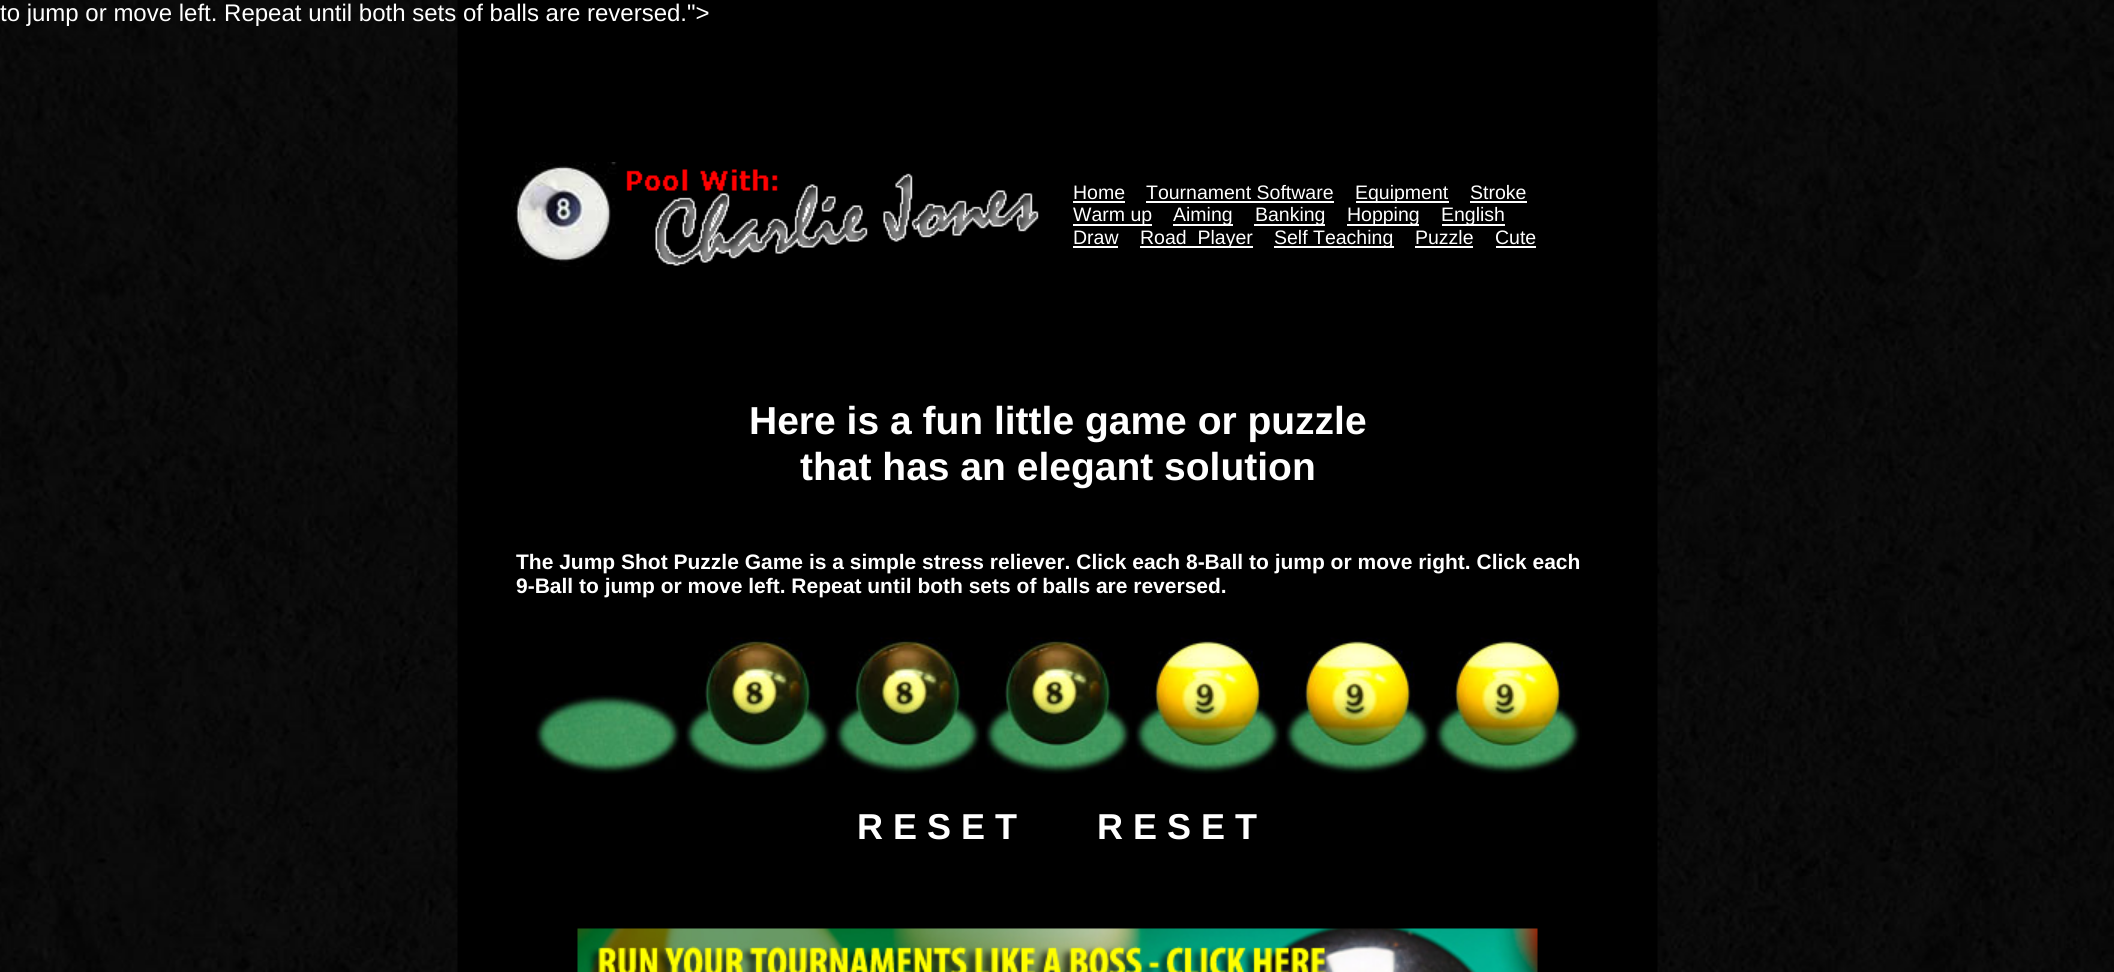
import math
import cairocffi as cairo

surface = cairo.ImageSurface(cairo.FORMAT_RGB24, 2114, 972)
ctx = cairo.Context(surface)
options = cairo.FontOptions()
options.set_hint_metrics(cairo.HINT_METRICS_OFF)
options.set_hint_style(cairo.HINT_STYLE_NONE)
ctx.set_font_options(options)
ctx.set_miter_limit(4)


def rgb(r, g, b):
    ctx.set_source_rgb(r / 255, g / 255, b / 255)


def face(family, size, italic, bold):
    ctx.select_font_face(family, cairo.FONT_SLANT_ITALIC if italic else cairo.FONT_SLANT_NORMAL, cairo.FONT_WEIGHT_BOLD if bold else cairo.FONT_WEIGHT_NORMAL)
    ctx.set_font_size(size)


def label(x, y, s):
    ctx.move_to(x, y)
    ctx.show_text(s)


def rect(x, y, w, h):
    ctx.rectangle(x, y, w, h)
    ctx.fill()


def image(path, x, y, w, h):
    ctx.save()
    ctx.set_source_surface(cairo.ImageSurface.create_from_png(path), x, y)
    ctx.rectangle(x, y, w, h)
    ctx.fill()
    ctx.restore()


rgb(255, 255, 255)
ctx.paint()
image('image0.png', 0, 0, 2114, 972)
face('Liberation Sans', 24, 0, 0)
rgb(255, 255, 255)
label(0, 21, 'to jump or move left. Repeat until both sets of balls are reversed.">')
image('image1.png', 511, 162, 106, 105)
image('image2.png', 626, 169, 413, 97)
face('Liberation Sans', 19.5, 0, 0)
label(1073, 199, 'Home')
rect(1073, 201, 52, 2)
label(1146, 199, 'Tournament Software')
rect(1146, 201, 188, 2)
rect(1356, 201, 93, 2)
label(1355, 199, 'Equipment')
label(1470, 199, 'Stroke')
rect(1470, 201, 57, 2)
rect(1073, 224, 79, 2)
label(1073, 221, 'Warm up')
rect(1173, 224, 60, 2)
label(1173, 221, 'Aiming')
rect(1254, 224, 71, 2)
label(1255, 221, 'Banking')
rect(1347, 224, 72, 2)
label(1347, 221, 'Hopping')
rect(1442, 224, 63, 2)
label(1441, 221, 'English')
label(1073, 244, 'Draw')
rect(1073, 246, 45, 2)
rect(1140, 246, 113, 2)
label(1140, 244, 'Road_Player')
rect(1274, 246, 120, 2)
label(1274, 244, 'Self Teaching')
label(1415, 244, 'Puzzle')
rect(1415, 246, 58, 2)
label(1495, 244, 'Cute')
rect(1496, 246, 40, 2)
face('Liberation Sans', 39, 0, 1)
label(749, 434, 'Here is a fun little game or puzzle')
label(800, 480, 'that has an elegant solution')
face('Liberation Sans', 21, 0, 1)
label(516, 569, 'The Jump Shot Puzzle Game is a simple stress reliever. Click each 8-Ball to jump or move right. Click each')
label(516, 593, '9-Ball to jump or move left. Repeat until both sets of balls are reversed.')
image('image3.png', 535, 695, 147, 79)
image('image4.png', 685, 637, 147, 137)
image('image5.png', 835, 637, 147, 137)
image('image5.png', 985, 637, 147, 137)
image('image6.png', 1135, 637, 147, 137)
image('image7.png', 1285, 637, 147, 137)
image('image8.png', 1435, 637, 147, 137)
face('Liberation Sans', 36, 0, 1)
label(857, 839, 'R E S E T        R E S E T')
image('image9.png', 577, 928, 961, 44)
surface.write_to_png('render.png')
